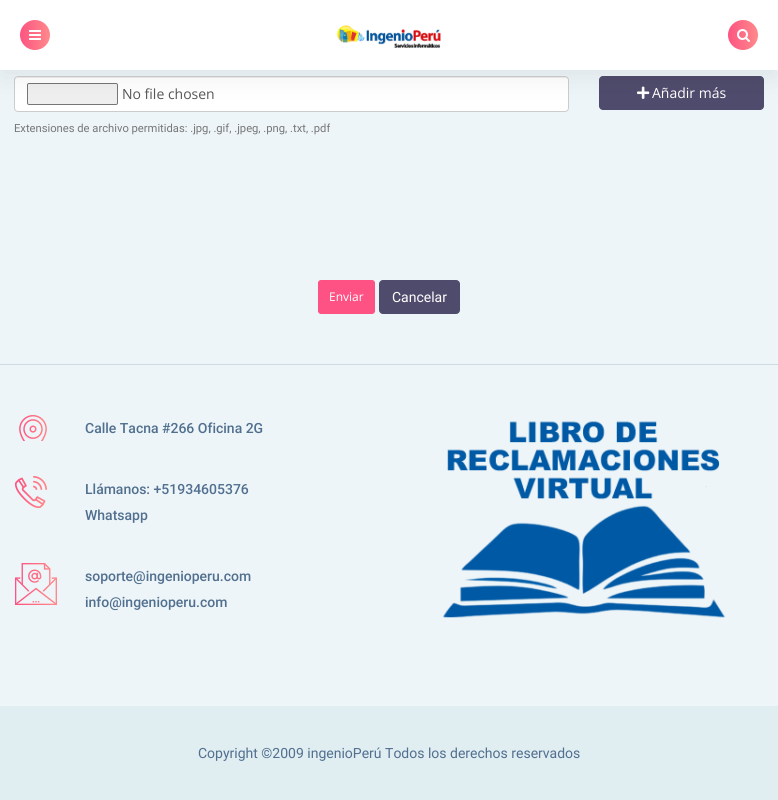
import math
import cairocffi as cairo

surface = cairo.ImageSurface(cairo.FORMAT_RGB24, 778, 800)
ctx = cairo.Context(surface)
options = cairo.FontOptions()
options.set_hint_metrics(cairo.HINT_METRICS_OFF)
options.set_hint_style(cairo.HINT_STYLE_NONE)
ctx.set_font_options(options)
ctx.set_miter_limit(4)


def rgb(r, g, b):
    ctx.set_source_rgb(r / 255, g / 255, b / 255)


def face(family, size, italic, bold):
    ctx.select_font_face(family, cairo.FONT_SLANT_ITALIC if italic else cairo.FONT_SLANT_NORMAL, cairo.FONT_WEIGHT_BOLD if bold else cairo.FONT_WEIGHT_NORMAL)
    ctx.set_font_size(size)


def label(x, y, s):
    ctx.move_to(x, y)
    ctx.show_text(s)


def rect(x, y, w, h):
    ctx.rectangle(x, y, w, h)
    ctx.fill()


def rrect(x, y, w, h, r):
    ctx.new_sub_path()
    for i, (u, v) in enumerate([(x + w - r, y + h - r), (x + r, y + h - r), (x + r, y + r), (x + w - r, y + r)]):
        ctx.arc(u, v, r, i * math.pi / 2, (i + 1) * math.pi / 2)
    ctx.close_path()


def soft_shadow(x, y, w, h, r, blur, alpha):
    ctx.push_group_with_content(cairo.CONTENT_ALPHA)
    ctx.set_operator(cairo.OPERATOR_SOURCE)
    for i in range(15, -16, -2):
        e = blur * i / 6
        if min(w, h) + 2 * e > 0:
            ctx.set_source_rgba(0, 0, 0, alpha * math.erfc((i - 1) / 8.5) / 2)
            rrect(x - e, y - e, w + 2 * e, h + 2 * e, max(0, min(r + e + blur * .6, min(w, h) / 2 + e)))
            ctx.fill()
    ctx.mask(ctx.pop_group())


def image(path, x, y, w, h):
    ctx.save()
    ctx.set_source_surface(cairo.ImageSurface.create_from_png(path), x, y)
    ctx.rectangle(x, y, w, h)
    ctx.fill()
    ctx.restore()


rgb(237, 245, 248)
ctx.paint()
rgb(255, 255, 255)
rrect(14, 76, 555, 36, 4)
ctx.fill()
rgb(236, 236, 236)
ctx.new_path()
ctx.move_to(18, 78)
ctx.line_to(565, 78)
ctx.curve_to(567, 78, 568, 79, 568, 81)
ctx.curve_to(568, 79, 567, 77, 565, 77)
ctx.line_to(18, 77)
ctx.line_to(16, 78)
ctx.line_to(15, 79)
ctx.line_to(15, 81)
ctx.curve_to(15, 79, 16, 78, 18, 78)
ctx.close_path()
ctx.fill()
rrect(14.5, 76.5, 554, 35, 3.5)
rgb(204, 204, 204)
ctx.set_line_width(1)
ctx.stroke()
rgb(239, 239, 239)
rrect(27.5, 83.5, 90, 21, 1.5)
ctx.fill_preserve()
rgb(118, 118, 118)
ctx.stroke()
rgb(79, 75, 108)
rrect(599.5, 76.5, 164, 33, 3.5)
ctx.fill_preserve()
ctx.stroke()
image('image3.png', 637, 86, 13, 13)
rgb(0, 0, 0)
soft_shadow(0, 7, 778, 70, 0, 15, 0.07)
rgb(255, 255, 255)
rect(0, 0, 778, 70)
gradient = cairo.LinearGradient(20, 35, 50, 35)
gradient.add_color_stop_rgba(0, 0.992, 0.329, 0.506, 1)
gradient.add_color_stop_rgba(1, 1, 0.537, 0.545, 1)
ctx.set_source(gradient)
ctx.arc(35, 35, 15, 0, 2 * math.pi)
ctx.fill()
image('image0.png', 29, 30, 12, 10)
image('image1.png', 336, 25, 105, 23)
gradient = cairo.LinearGradient(728, 35, 758, 35)
gradient.add_color_stop_rgba(0, 0.992, 0.329, 0.506, 1)
gradient.add_color_stop_rgba(1, 1, 0.537, 0.545, 1)
ctx.set_source(gradient)
ctx.arc(743, 35, 15, 0, 2 * math.pi)
ctx.fill()
image('image2.png', 737, 29, 13, 13)
rgb(207, 219, 227)
rect(0, 364, 778, 1)
face('Open Sans', 14, 0, 0)
rgb(85, 85, 85)
label(122, 99, 'No file chosen')
rgb(255, 255, 255)
label(652, 98, 'Añadir más')
face('Roboto', 11.2, 0, 0)
rgb(119, 119, 119)
label(14, 132, 'Extensiones de archivo permitidas: .jpg, .gif, .jpeg, .png, .txt, .pdf')
rgb(255, 82, 132)
rrect(318.5, 280.5, 56, 33, 2.5)
ctx.fill_preserve()
ctx.stroke()
face('Open Sans', 12, 0, 0)
rgb(255, 255, 255)
label(329, 301, 'Enviar')
rgb(79, 75, 108)
rrect(379.5, 280.5, 80, 33, 3.5)
ctx.fill_preserve()
ctx.stroke()
face('Roboto', 14, 0, 0)
rgb(255, 255, 255)
label(392, 302, 'Cancelar')
image('image4.png', 19, 415, 28, 26)
face('Roboto Medium', 14, 0, 0)
rgb(81, 111, 143)
label(85, 433, 'Calle Tacna #266 Oficina 2G')
image('image5.png', 15, 476, 32, 32)
label(85, 494, 'Llámanos: +51934605376')
label(85, 520, 'Whatsapp')
image('image6.png', 15, 563, 42, 42)
label(85, 581, 'soporte@ingenioperu.com')
label(85, 607, 'info@ingenioperu.com')
image('image7.png', 443, 421, 282, 197)
rgb(224, 237, 241)
rect(0, 706, 778, 94)
face('Roboto', 14, 0, 0)
rgb(81, 111, 143)
label(198, 758, 'Copyright ©2009 ingenioPerú Todos los derechos reservados')
surface.write_to_png('render.png')
